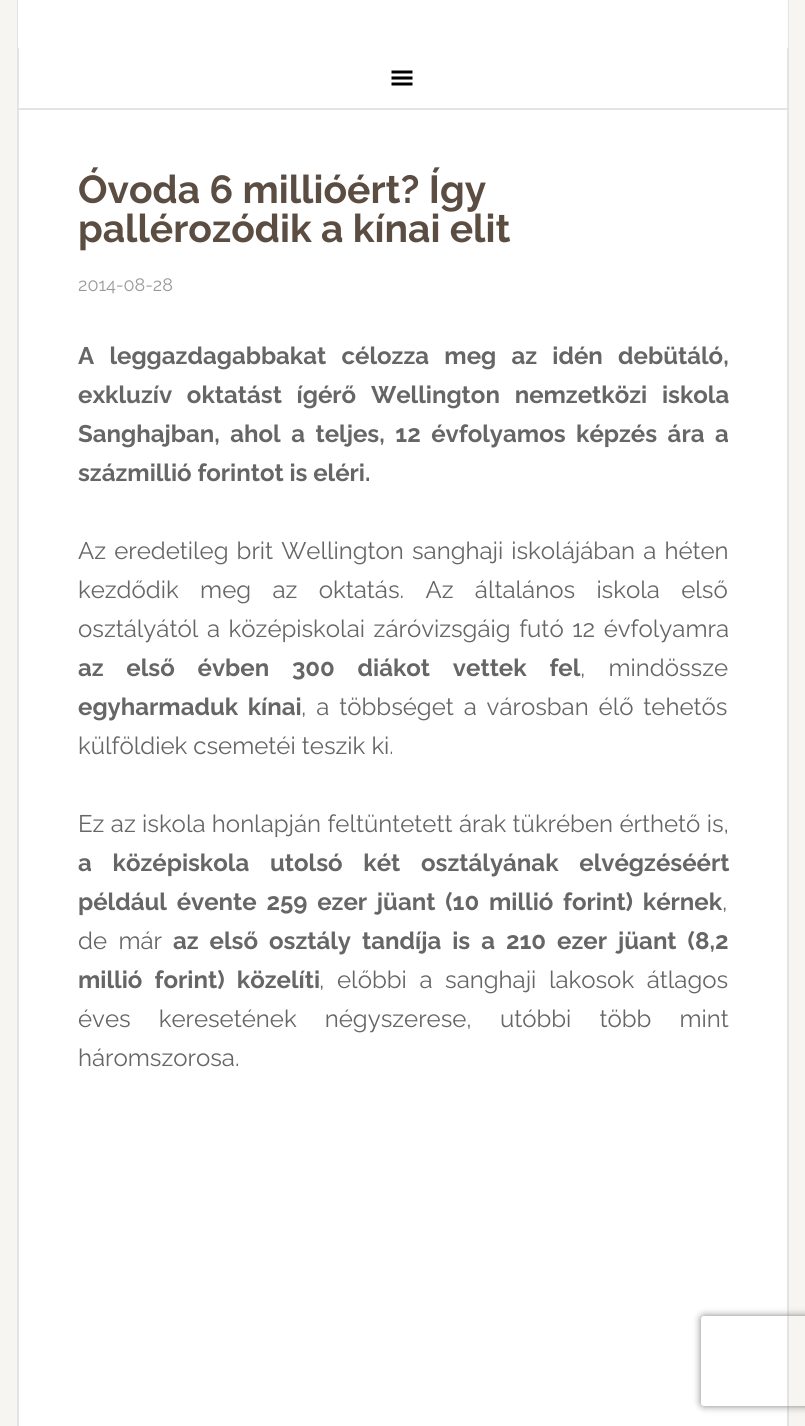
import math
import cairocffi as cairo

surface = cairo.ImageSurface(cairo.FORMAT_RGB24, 805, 1426)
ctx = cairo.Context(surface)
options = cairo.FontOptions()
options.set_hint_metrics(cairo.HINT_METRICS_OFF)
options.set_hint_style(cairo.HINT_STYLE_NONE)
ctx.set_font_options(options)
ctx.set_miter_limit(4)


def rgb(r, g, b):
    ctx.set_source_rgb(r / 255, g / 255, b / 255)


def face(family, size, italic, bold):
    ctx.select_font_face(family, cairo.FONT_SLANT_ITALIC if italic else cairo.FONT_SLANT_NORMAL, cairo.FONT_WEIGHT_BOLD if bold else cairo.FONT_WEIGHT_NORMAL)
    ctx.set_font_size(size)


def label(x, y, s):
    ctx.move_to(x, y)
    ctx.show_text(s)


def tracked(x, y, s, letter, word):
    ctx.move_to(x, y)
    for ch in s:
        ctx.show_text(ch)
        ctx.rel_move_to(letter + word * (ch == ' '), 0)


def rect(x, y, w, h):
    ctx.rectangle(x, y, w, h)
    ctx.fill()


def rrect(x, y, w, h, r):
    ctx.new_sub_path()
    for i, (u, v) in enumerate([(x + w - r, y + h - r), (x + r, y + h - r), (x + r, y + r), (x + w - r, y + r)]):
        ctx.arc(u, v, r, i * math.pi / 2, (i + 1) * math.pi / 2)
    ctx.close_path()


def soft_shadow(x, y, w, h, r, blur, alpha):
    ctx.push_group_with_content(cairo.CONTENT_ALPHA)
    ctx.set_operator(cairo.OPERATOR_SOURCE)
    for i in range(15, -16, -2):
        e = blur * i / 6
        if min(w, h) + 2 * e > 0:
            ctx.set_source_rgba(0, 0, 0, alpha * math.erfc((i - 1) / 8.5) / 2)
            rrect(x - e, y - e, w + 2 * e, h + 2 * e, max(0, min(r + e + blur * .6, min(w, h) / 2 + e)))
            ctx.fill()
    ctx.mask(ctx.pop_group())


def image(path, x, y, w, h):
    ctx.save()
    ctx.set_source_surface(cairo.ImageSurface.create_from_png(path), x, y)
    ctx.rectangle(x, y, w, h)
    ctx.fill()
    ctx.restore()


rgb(246, 245, 242)
ctx.paint()
rgb(255, 255, 255)
rect(19, 48, 768, 1378)
ctx.rectangle(18, -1, 770, 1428)
rgb(227, 227, 227)
ctx.stroke()
rgb(255, 255, 255)
rect(18, 0, 770, 48)
rgb(227, 227, 227)
rect(18, 108, 770, 2)
image('image0.png', 391, 70, 22, 16)
face('Raleway', 39, 0, 1)
rgb(91, 77, 66)
label(78, 203, 'Óvoda 6 millióért? Így')
label(78, 242, 'pallérozódik a kínai elit')
face('Raleway', 18, 0, 0)
rgb(153, 153, 153)
label(78, 291, '2014-08-28')
face('Raleway', 24, 0, 1)
rgb(102, 102, 102)
tracked(78, 364, 'A leggazdagabbakat célozza meg az idén debütáló,', 0, 9.5)
tracked(78, 403, 'exkluzív oktatást ígérő Wellington nemzetközi iskola', 0, 9)
tracked(78, 442, 'Sanghajban, ahol a teljes, 12 évfolyamos képzés ára a', 0, 4.75)
label(78, 481, 'százmillió forintot is eléri.')
face('Raleway', 24, 0, 0)
tracked(78, 559, 'Az eredetileg brit Wellington sanghaji iskolájában a héten', 0, 2)
tracked(78, 598, 'kezdődik meg az oktatás. Az általános iskola első', 0, 15.25)
tracked(78, 637, 'osztályától a középiskolai záróvizsgáig futó 12 évfolyamra', 0, 2.5)
face('Raleway', 24, 0, 1)
tracked(78, 676, 'az első évben 300 diákot vettek fel', 0, 17)
face('Raleway', 24, 0, 0)
tracked(580, 676, ', mindössze', 0, 17)
face('Raleway', 24, 0, 1)
tracked(78, 715, 'egyharmaduk kínai', 0, 3.75)
face('Raleway', 24, 0, 0)
tracked(301, 715, ', a többséget a városban élő tehetős', 0, 3.75)
label(78, 754, 'külföldiek csemetéi teszik ki.')
tracked(78, 832, 'Ez az iskola honlapján feltüntetett árak tükrében érthető is,', 0, 0.25)
face('Raleway', 24, 0, 1)
tracked(78, 871, 'a középiskola utolsó két osztályának elvégzéséért', 0, 15)
tracked(78, 910, 'például évente 259 ezer jüant (10 millió forint) kérnek', 0, 4)
face('Raleway', 24, 0, 0)
label(722, 910, ',')
tracked(78, 949, 'de már', 0, 5.25)
face('Raleway', 24, 0, 1)
tracked(173, 949, 'az első osztály tandíja is a 210 ezer jüant (8,2', 0, 5.25)
tracked(78, 988, 'millió forint) közelíti', 0, 6.5)
face('Raleway', 24, 0, 0)
tracked(319, 988, ', előbbi a sanghaji lakosok átlagos', 0, 6.5)
tracked(78, 1027, 'éves keresetének négyszerese, utóbbi több mint', 0, 22)
label(78, 1066, 'háromszorosa.')
ctx.save()
ctx.set_fill_rule(cairo.FILL_RULE_EVEN_ODD)
ctx.new_path()
ctx.move_to(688, 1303)
ctx.line_to(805, 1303)
ctx.line_to(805, 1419)
ctx.line_to(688, 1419)
ctx.close_path()
ctx.move_to(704, 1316)
ctx.line_to(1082, 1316)
ctx.curve_to(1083.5, 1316, 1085, 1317.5, 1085, 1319)
ctx.line_to(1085, 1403)
ctx.curve_to(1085, 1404.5, 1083.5, 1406, 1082, 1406)
ctx.line_to(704, 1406)
ctx.curve_to(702.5, 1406, 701, 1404.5, 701, 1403)
ctx.line_to(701, 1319)
ctx.curve_to(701, 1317.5, 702.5, 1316, 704, 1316)
ctx.close_path()
ctx.clip()
rgb(128, 128, 128)
soft_shadow(701, 1316, 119, 90, 3, 4, 1)
ctx.restore()
surface.write_to_png('render.png')
